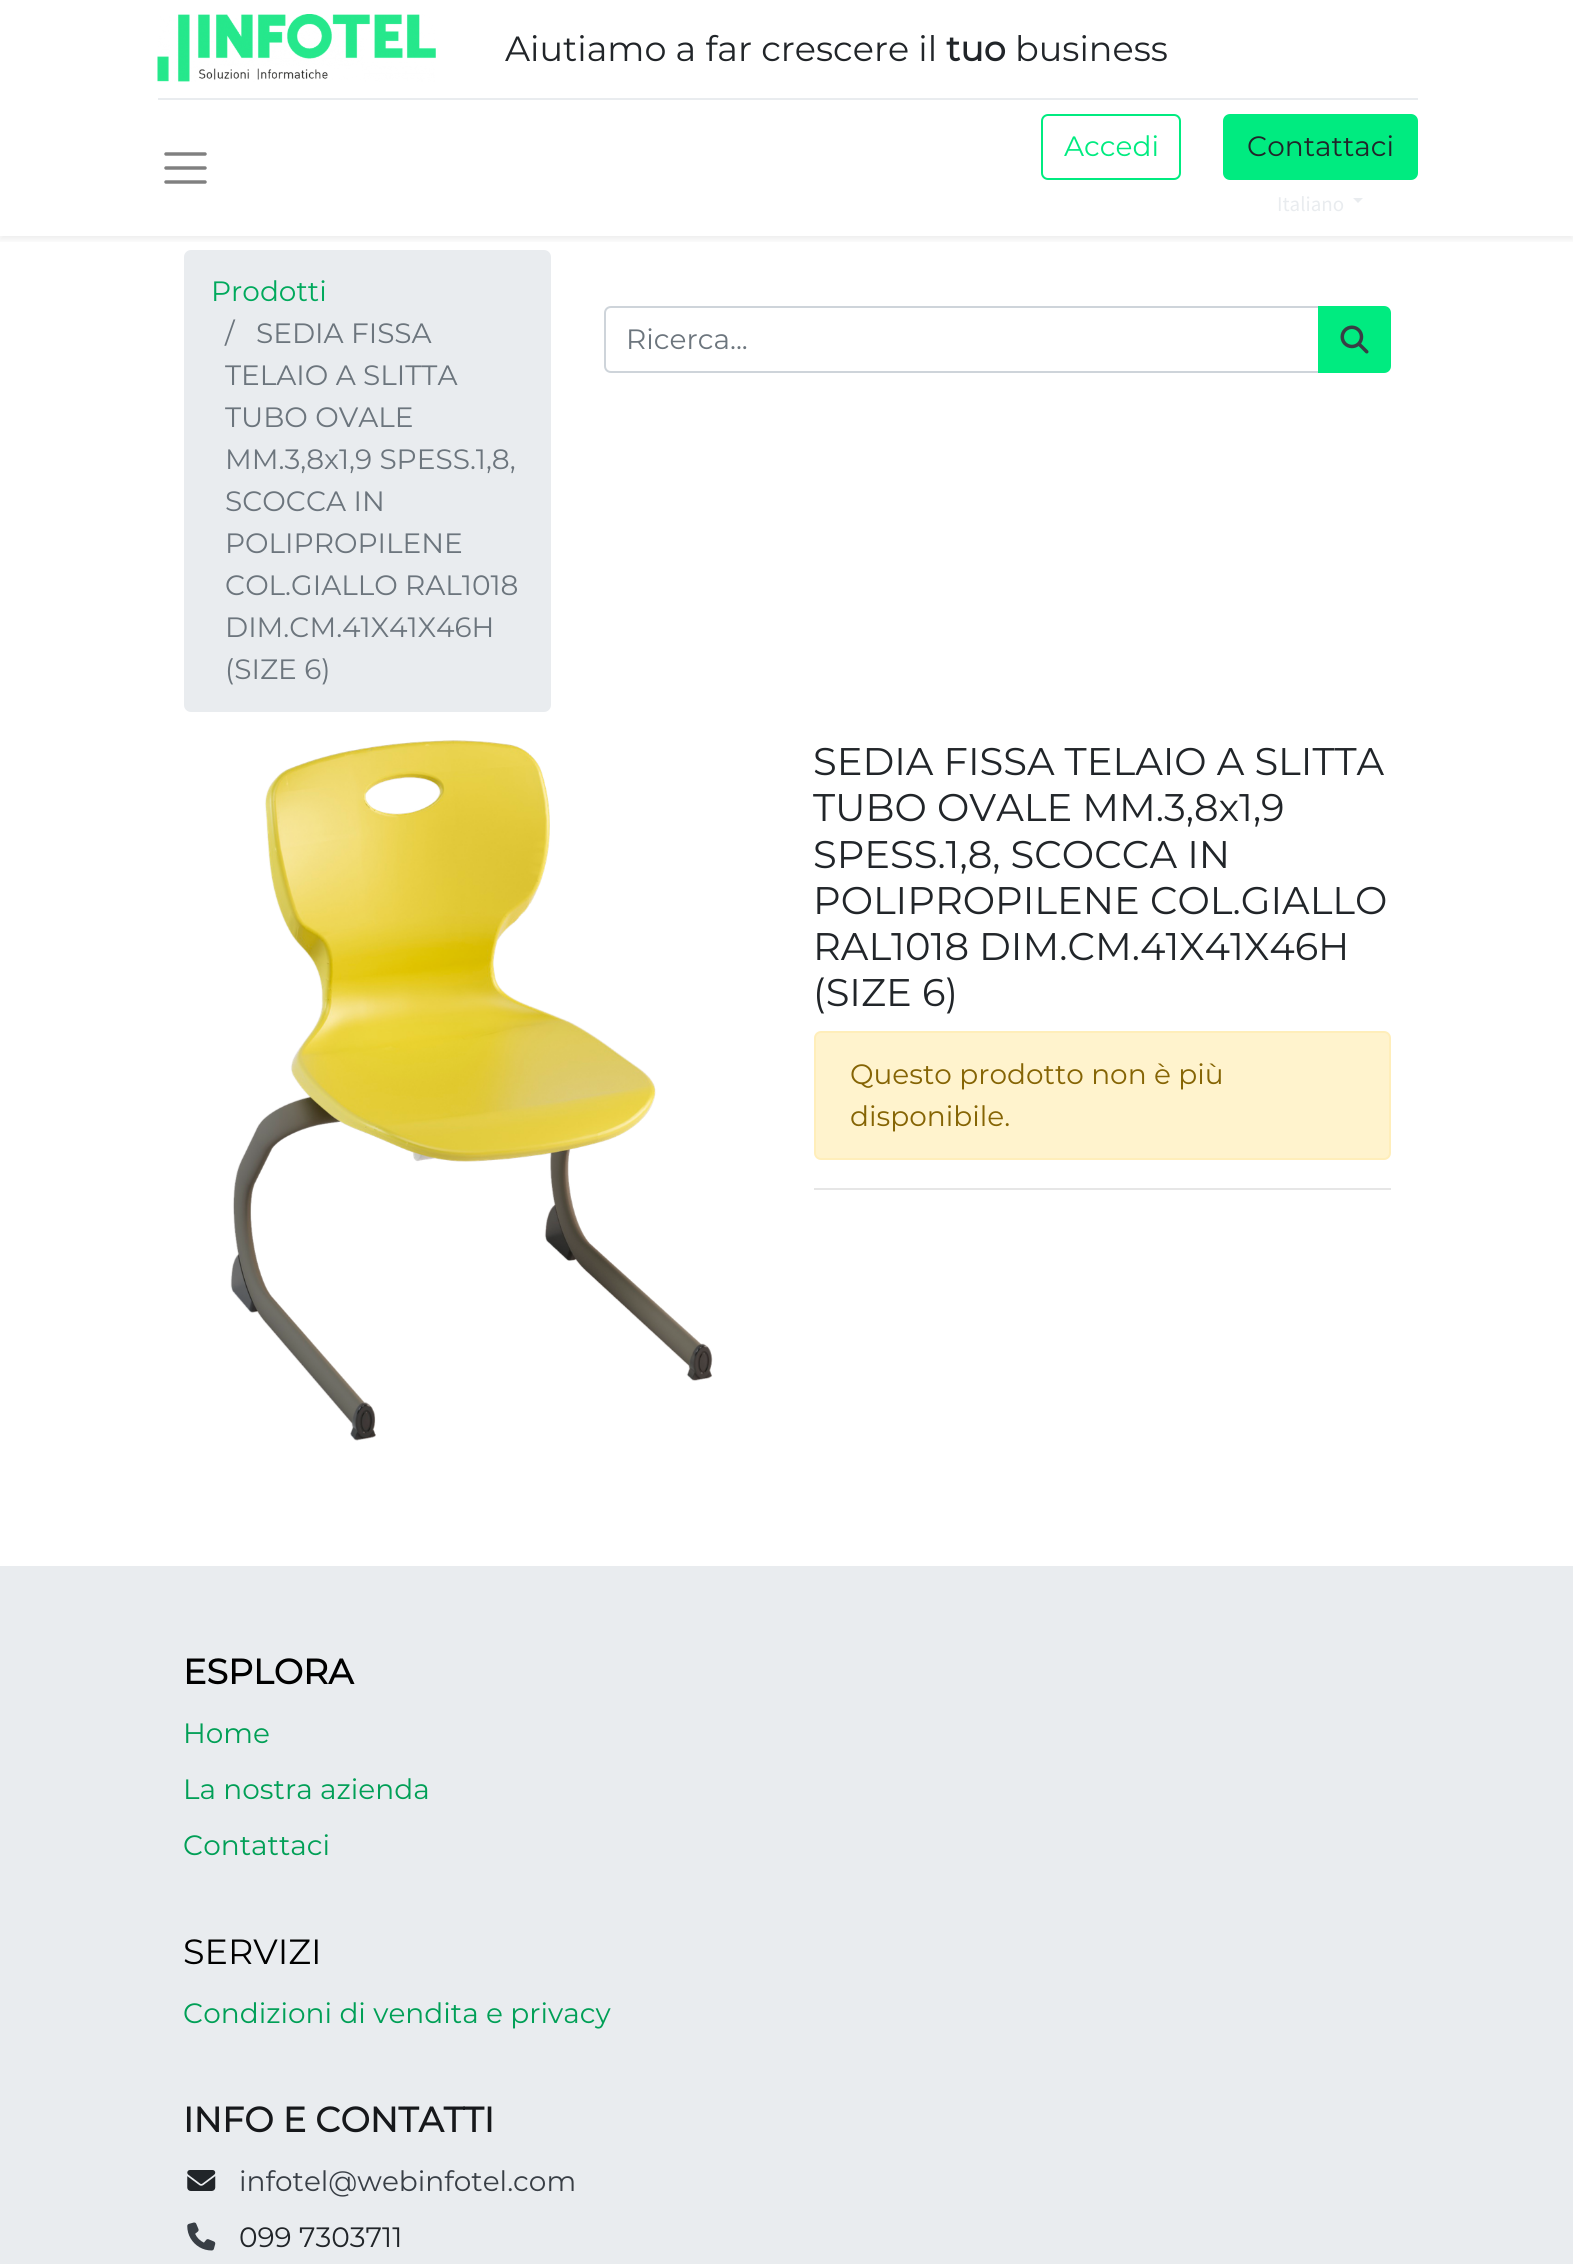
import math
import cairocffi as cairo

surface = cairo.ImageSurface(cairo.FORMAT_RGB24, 1573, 2264)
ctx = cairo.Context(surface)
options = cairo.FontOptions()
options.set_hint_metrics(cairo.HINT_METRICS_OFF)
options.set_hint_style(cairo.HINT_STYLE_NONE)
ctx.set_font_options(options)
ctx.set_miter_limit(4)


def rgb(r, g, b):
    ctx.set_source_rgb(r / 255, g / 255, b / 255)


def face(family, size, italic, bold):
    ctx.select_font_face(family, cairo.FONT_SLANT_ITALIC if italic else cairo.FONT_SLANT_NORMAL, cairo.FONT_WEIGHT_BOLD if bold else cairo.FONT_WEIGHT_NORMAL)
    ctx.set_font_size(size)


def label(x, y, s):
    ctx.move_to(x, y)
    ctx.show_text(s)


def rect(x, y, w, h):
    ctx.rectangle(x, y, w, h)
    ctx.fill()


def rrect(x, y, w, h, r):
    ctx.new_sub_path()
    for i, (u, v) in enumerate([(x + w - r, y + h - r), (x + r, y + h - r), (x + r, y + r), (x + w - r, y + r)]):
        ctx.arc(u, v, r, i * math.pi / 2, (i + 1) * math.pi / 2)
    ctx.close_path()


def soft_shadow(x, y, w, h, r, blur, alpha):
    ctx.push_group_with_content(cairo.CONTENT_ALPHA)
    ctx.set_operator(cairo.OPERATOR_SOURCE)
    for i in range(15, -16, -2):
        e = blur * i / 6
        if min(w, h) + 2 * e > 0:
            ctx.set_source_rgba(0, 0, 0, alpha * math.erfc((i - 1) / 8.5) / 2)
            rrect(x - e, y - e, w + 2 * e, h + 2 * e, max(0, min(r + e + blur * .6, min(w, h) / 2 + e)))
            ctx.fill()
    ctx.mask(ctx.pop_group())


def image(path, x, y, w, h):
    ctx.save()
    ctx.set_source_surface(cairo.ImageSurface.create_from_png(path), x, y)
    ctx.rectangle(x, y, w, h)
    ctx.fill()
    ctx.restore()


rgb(255, 255, 255)
ctx.paint()
rgb(233, 236, 239)
rrect(184, 250, 367, 462, 7)
ctx.fill()
ctx.save()
ctx.rectangle(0, 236, 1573, 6)
ctx.clip()
rgb(0, 0, 0)
soft_shadow(0, 4, 1573, 236, 0, 3.5, 0.07)
ctx.restore()
image('image0.png', 157, 14, 279, 68)
face('Montserrat', 35, 0, 0)
rgb(33, 37, 41)
label(505, 61, 'Aiutiamo a far crescere il')
face('Montserrat', 35, 0, 1)
label(946, 61, 'tuo')
face('Montserrat', 35, 0, 0)
label(1015, 61, 'business')
rgb(233, 236, 239)
rect(158, 98, 1260, 2)
ctx.new_path()
ctx.move_to(166, 154)
ctx.line_to(205, 154)
ctx.move_to(166, 168)
ctx.line_to(205, 168)
ctx.move_to(166, 182)
ctx.line_to(205, 182)
rgb(128, 128, 128)
ctx.set_line_width(3.5)
ctx.set_line_cap(cairo.LINE_CAP_ROUND)
ctx.stroke()
rrect(1042, 115, 138, 64, 6)
rgb(0, 235, 128)
ctx.set_line_width(2)
ctx.set_line_cap(cairo.LINE_CAP_BUTT)
ctx.stroke()
face('Montserrat', 28, 0, 0)
label(1064, 156, 'Accedi')
rrect(1224, 115, 193, 64, 6)
ctx.fill_preserve()
ctx.stroke()
rgb(33, 37, 41)
label(1247, 156, 'Contattaci')
face('Source Sans Pro', 21, 0, 0)
rgb(233, 236, 239)
label(1277, 211, 'Italiano')
ctx.new_path()
ctx.move_to(1353, 198)
ctx.line_to(1363, 198)
ctx.line_to(1358, 203)
ctx.close_path()
ctx.fill()
face('Montserrat', 28, 0, 0)
rgb(0, 169, 92)
label(211, 301, 'Prodotti')
rgb(108, 117, 125)
label(225, 343, '/')
label(256, 343, 'SEDIA FISSA')
label(225, 385, 'TELAIO A SLITTA')
label(225, 427, 'TUBO OVALE')
label(225, 469, 'MM.3,8x1,9 SPESS.1,8,')
label(225, 511, 'SCOCCA IN')
label(225, 553, 'POLIPROPILENE')
label(225, 595, 'COL.GIALLO RAL1018')
label(225, 637, 'DIM.CM.41X41X46H')
label(225, 679, '(SIZE 6)')
ctx.new_path()
ctx.move_to(611, 307)
ctx.line_to(1319, 307)
ctx.line_to(1319, 372)
ctx.line_to(611, 372)
ctx.curve_to(607.5, 372, 605, 369.5, 605, 366)
ctx.line_to(605, 313)
ctx.curve_to(605, 309.5, 607.5, 307, 611, 307)
ctx.close_path()
rgb(206, 212, 218)
ctx.stroke()
rgb(108, 117, 125)
label(626, 349, 'Ricerca...')
rgb(0, 235, 128)
ctx.new_path()
ctx.move_to(1319, 307)
ctx.line_to(1384, 307)
ctx.curve_to(1387.5, 307, 1390, 309.5, 1390, 313)
ctx.line_to(1390, 366)
ctx.curve_to(1390, 369.5, 1387.5, 372, 1384, 372)
ctx.line_to(1319, 372)
ctx.close_path()
ctx.fill_preserve()
ctx.stroke()
image('image1.png', 1340, 325, 29, 29)
image('image2.png', 230, 740, 483, 701)
face('Montserrat', 38.5, 0, 0)
rgb(33, 37, 41)
label(813, 775, 'SEDIA FISSA TELAIO A SLITTA')
label(813, 821, 'TUBO OVALE MM.3,8x1,9')
label(813, 868, 'SPESS.1,8, SCOCCA IN')
label(813, 914, 'POLIPROPILENE COL.GIALLO')
label(813, 960, 'RAL1018 DIM.CM.41X41X46H')
label(813, 1006, '(SIZE 6)')
rgb(255, 243, 205)
rrect(815, 1032, 575, 127, 6)
ctx.fill_preserve()
rgb(255, 238, 186)
ctx.stroke()
face('Montserrat', 28, 0, 0)
rgb(133, 100, 4)
label(850, 1084, 'Questo prodotto non è più')
label(850, 1126, 'disponibile.')
rgb(230, 230, 230)
rect(814, 1188, 577, 2)
rgb(233, 236, 239)
rect(0, 1566, 1573, 698)
face('Montserrat', 35, 0, 1)
rgb(0, 0, 0)
label(183, 1684, 'ESPLORA')
face('Montserrat', 28, 0, 0)
rgb(0, 159, 86)
label(183, 1743, 'Home')
label(183, 1799, 'La nostra azienda')
label(183, 1855, 'Contattaci')
face('Montserrat', 35, 0, 0)
rgb(0, 0, 0)
label(183, 1964, 'SERVIZI')
face('Montserrat', 28, 0, 0)
rgb(0, 159, 86)
label(183, 2023, 'Condizioni di vendita e privacy')
face('Montserrat', 35, 0, 1)
rgb(22, 24, 27)
label(183, 2132, 'INFO E CONTATTI')
image('image3.png', 187, 2170, 29, 21)
face('Montserrat', 28, 0, 0)
rgb(56, 62, 69)
label(239, 2191, 'infotel@webinfotel.com')
image('image4.png', 187, 2222, 29, 29)
rgb(33, 37, 41)
label(239, 2247, '099 7303711')
surface.write_to_png('render.png')
